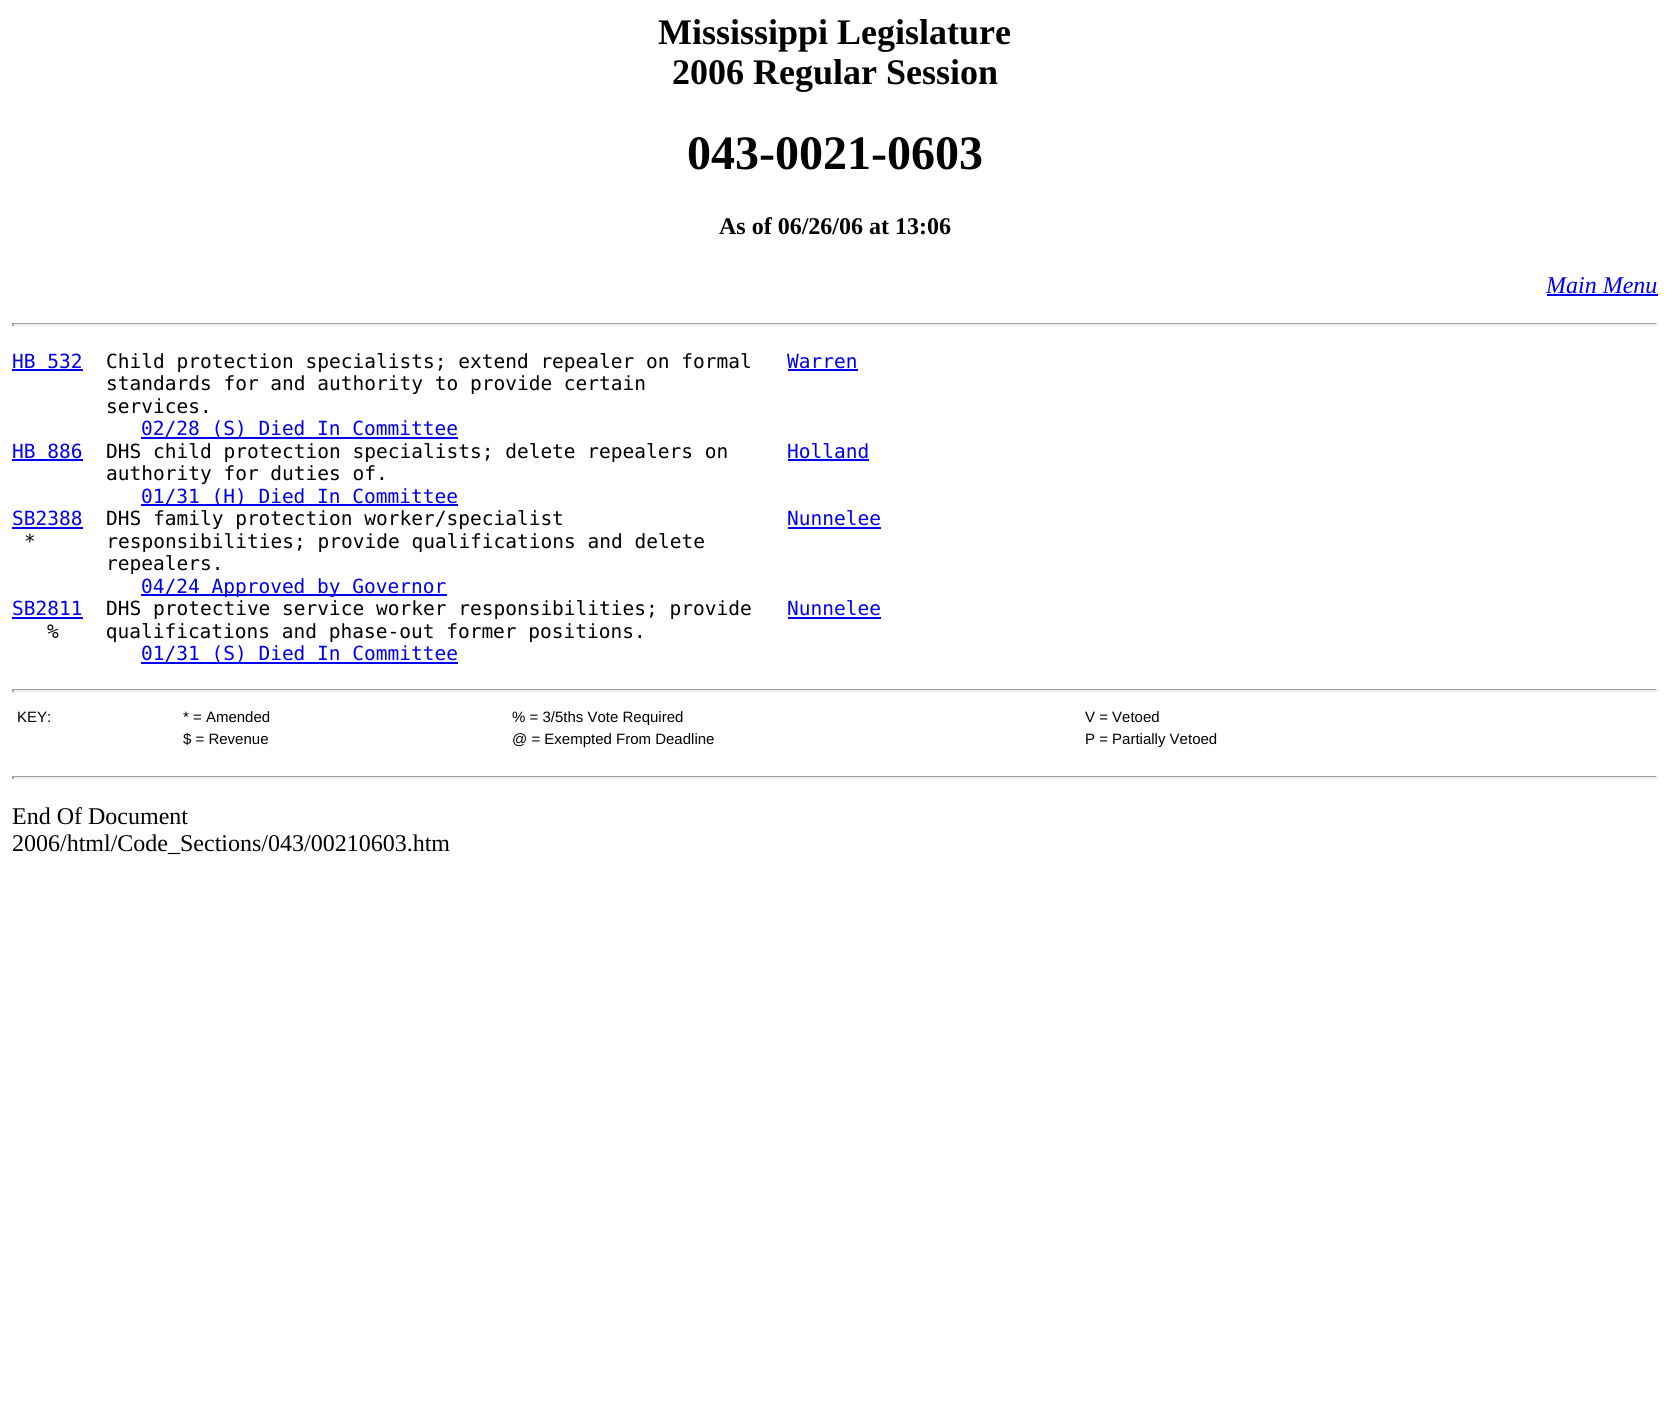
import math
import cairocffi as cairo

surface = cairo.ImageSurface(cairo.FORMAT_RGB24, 1669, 1405)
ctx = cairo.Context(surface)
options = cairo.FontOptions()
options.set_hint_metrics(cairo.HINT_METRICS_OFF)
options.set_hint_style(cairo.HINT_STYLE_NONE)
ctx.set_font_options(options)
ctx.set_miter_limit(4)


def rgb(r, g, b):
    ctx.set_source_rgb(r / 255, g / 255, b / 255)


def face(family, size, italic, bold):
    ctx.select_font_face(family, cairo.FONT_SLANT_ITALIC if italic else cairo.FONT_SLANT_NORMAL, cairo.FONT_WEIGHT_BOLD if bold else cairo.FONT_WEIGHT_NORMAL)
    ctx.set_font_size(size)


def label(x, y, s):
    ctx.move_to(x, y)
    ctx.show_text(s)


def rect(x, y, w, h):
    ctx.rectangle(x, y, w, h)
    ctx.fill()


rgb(255, 255, 255)
ctx.paint()
face('Liberation Serif', 36, 0, 1)
rgb(0, 0, 0)
label(658, 44, 'Mississippi Legislature')
label(672, 84, '2006 Regular Session')
face('Liberation Serif', 48, 0, 1)
label(687, 169, '043-0021-0603')
face('Liberation Serif', 24, 0, 1)
label(719, 234, 'As of 06/26/06 at 13:06')
face('Liberation Serif', 24, 1, 0)
rgb(0, 0, 238)
label(1546, 293, 'Main Menu')
rect(1547, 294, 111, 2)
rgb(159, 159, 159)
rect(12, 323, 1646, 1)
rgb(238, 238, 238)
rect(1656, 323, 2, 3)
rect(12, 324, 1646, 2)
rgb(159, 159, 159)
rect(12, 323, 2, 3)
face('DejaVu Sans Mono', 19.5, 0, 0)
rgb(0, 0, 238)
label(12, 368, 'HB 532')
rect(12, 369, 71, 2)
rgb(0, 0, 0)
label(106, 368, 'Child protection specialists; extend repealer on formal')
rgb(0, 0, 238)
label(787, 368, 'Warren')
rect(788, 369, 70, 2)
rgb(0, 0, 0)
label(106, 390, 'standards for and authority to provide certain')
label(106, 413, 'services.')
rgb(0, 0, 238)
rect(141, 437, 317, 2)
label(141, 435, '02/28 (S) Died In Committee')
label(12, 458, 'HB 886')
rect(12, 459, 71, 2)
rgb(0, 0, 0)
label(106, 458, 'DHS child protection specialists; delete repealers on')
rgb(0, 0, 238)
label(787, 458, 'Holland')
rect(788, 459, 81, 2)
rgb(0, 0, 0)
label(106, 480, 'authority for duties of.')
rgb(0, 0, 238)
rect(141, 504, 317, 2)
label(141, 503, '01/31 (H) Died In Committee')
label(12, 525, 'SB2388')
rect(12, 527, 71, 2)
rgb(0, 0, 0)
label(106, 525, 'DHS family protection worker/specialist')
rgb(0, 0, 238)
label(787, 525, 'Nunnelee')
rect(788, 527, 93, 2)
rgb(0, 0, 0)
label(24, 548, '*      responsibilities; provide qualifications and delete')
label(106, 570, 'repealers.')
rgb(0, 0, 238)
rect(141, 594, 306, 2)
label(141, 593, '04/24 Approved by Governor')
label(12, 615, 'SB2811')
rect(12, 617, 71, 2)
rgb(0, 0, 0)
label(106, 615, 'DHS protective service worker responsibilities; provide')
rgb(0, 0, 238)
label(787, 615, 'Nunnelee')
rect(788, 617, 93, 2)
rgb(0, 0, 0)
label(47, 638, '%    qualifications and phase-out former positions.')
rgb(0, 0, 238)
rect(141, 662, 317, 2)
label(141, 660, '01/31 (S) Died In Committee')
rgb(159, 159, 159)
rect(12, 689, 1646, 1)
rgb(238, 238, 238)
rect(1656, 689, 2, 3)
rect(12, 690, 1646, 2)
rgb(159, 159, 159)
rect(12, 689, 2, 3)
face('Liberation Sans', 15, 0, 0)
rgb(0, 0, 0)
label(17, 722, 'KEY:')
label(183, 722, '* = Amended')
label(512, 722, '% = 3/5ths Vote Required')
label(1085, 722, 'V = Vetoed')
label(183, 744, '$ = Revenue')
label(512, 744, '@ = Exempted From Deadline')
label(1085, 744, 'P = Partially Vetoed')
rgb(159, 159, 159)
rect(12, 776, 1646, 1)
rgb(238, 238, 238)
rect(1656, 776, 2, 3)
rect(12, 777, 1646, 2)
rgb(159, 159, 159)
rect(12, 776, 2, 3)
face('Liberation Serif', 24, 0, 0)
rgb(0, 0, 0)
label(12, 824, 'End Of Document')
label(12, 851, '2006/html/Code_Sections/043/00210603.htm')
surface.write_to_png('render.png')
